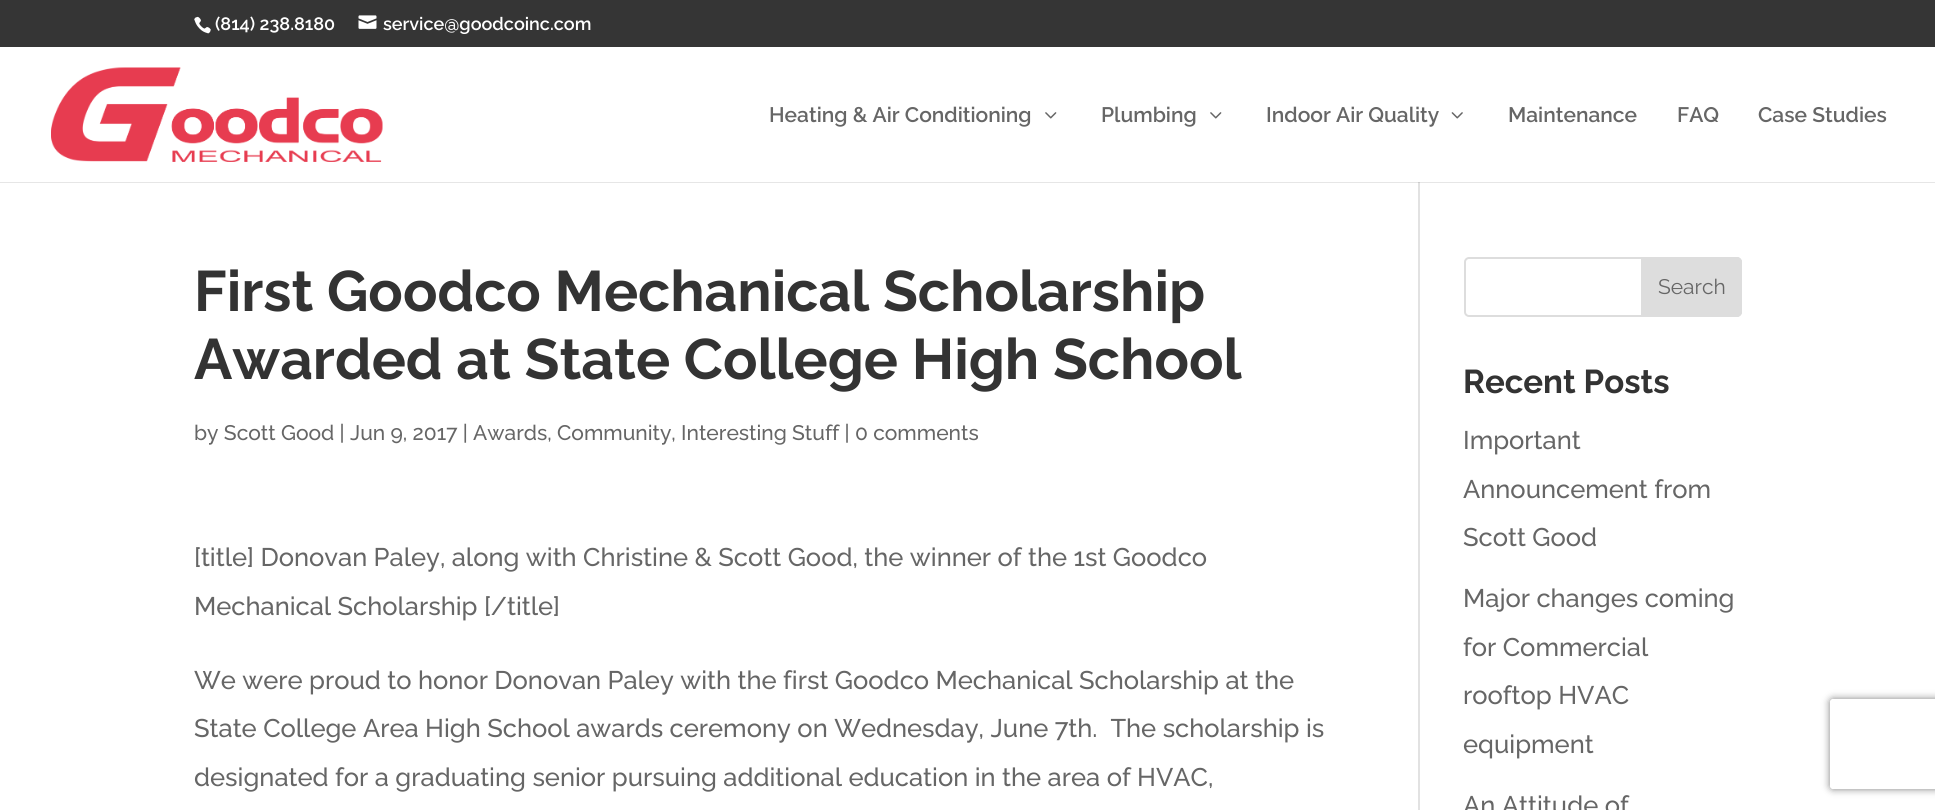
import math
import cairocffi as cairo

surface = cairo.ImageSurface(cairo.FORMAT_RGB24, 1935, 810)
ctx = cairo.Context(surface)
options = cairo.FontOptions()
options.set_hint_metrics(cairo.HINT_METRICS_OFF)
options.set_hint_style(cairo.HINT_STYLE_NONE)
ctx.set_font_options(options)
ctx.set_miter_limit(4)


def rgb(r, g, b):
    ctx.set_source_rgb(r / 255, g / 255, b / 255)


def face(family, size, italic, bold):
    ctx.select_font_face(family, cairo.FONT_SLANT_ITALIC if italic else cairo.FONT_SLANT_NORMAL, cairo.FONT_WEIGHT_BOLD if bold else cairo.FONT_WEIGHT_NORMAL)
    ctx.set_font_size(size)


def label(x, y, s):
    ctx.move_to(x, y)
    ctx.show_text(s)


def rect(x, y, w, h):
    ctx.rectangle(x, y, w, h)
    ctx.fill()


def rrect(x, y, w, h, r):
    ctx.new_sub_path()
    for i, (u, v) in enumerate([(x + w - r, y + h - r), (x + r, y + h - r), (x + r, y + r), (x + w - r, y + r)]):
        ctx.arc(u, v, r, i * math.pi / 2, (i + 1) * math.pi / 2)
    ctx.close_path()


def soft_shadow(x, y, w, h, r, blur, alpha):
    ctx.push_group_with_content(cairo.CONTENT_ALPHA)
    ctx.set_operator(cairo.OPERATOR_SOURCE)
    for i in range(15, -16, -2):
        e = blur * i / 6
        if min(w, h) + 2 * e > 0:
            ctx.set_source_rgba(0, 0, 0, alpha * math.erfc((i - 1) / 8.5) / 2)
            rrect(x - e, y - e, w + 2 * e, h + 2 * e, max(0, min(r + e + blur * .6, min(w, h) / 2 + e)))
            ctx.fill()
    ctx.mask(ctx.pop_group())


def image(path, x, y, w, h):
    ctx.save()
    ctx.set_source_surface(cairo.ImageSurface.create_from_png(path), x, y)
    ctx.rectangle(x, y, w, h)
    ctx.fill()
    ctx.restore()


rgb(255, 255, 255)
ctx.paint()
rgb(230, 230, 230)
rect(0, 182, 1935, 1)
rgb(53, 53, 53)
rect(0, 0, 1935, 47)
image('image0.png', 194, 16, 17, 18)
face('Raleway SemiBold', 18, 0, 0)
rgb(255, 255, 255)
label(215, 30, '(814) 238.8180')
image('image1.png', 358, 15, 19, 14)
label(383, 30, 'service@goodcoinc.com')
image('image2.png', 51, 67, 332, 95)
face('Raleway SemiBold', 21, 0, 0)
rgb(102, 102, 102)
label(769, 122, 'Heating & Air Conditioning')
image('image3.png', 1045, 112, 12, 7)
label(1101, 122, 'Plumbing')
image('image3.png', 1210, 112, 12, 7)
label(1266, 122, 'Indoor Air Quality')
image('image4.png', 1451, 112, 12, 7)
label(1508, 122, 'Maintenance')
label(1677, 122, 'FAQ')
label(1758, 122, 'Case Studies')
rgb(226, 226, 226)
rect(1418, 183, 2, 627)
rgb(203, 203, 203)
rect(1418, 182, 2, 1)
face('Raleway', 57, 0, 1)
rgb(51, 51, 51)
label(194, 311, 'First Goodco Mechanical Scholarship')
label(194, 379, 'Awarded at State College High School')
face('Raleway Medium', 21, 0, 0)
rgb(102, 102, 102)
label(194, 440, 'by Scott Good | Jun 9, 2017 | Awards, Community, Interesting Stuff | 0 comments')
face('Raleway Medium', 25.5, 0, 0)
label(194, 566, '[title] Donovan Paley, along with Christine & Scott Good, the winner of the 1st Goodco')
label(194, 615, 'Mechanical Scholarship [/title]')
label(194, 689, 'We were proud to honor Donovan Paley with the first Goodco Mechanical Scholarship at the')
label(194, 737, 'State College Area High School awards ceremony on Wednesday, June 7th.  The scholarship is')
label(194, 786, 'designated for a graduating senior pursuing additional education in the area of HVAC,')
rrect(1465, 258, 276, 58, 4)
rgb(221, 221, 221)
ctx.stroke()
ctx.new_path()
ctx.move_to(1642, 258)
ctx.line_to(1737, 258)
ctx.curve_to(1739, 258, 1741, 260, 1741, 262)
ctx.line_to(1741, 312)
ctx.curve_to(1741, 314, 1739, 316, 1737, 316)
ctx.line_to(1642, 316)
ctx.close_path()
ctx.fill_preserve()
ctx.stroke()
face('Raleway', 21, 0, 0)
rgb(102, 102, 102)
label(1658, 294, 'Search')
face('Raleway', 33, 0, 1)
rgb(51, 51, 51)
label(1463, 393, 'Recent Posts')
face('Raleway Medium', 25.5, 0, 0)
rgb(102, 102, 102)
label(1463, 449, 'Important')
label(1463, 498, 'Announcement from')
label(1463, 546, 'Scott Good')
label(1463, 607, 'Major changes coming')
label(1463, 656, 'for Commercial')
label(1463, 704, 'rooftop HVAC')
label(1463, 753, 'equipment')
label(1463, 814, 'An Attitude of')
ctx.save()
ctx.set_fill_rule(cairo.FILL_RULE_EVEN_ODD)
ctx.new_path()
ctx.move_to(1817, 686)
ctx.line_to(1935, 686)
ctx.line_to(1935, 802)
ctx.line_to(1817, 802)
ctx.close_path()
ctx.move_to(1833, 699)
ctx.line_to(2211, 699)
ctx.curve_to(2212.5, 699, 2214, 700.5, 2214, 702)
ctx.line_to(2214, 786)
ctx.curve_to(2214, 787.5, 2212.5, 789, 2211, 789)
ctx.line_to(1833, 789)
ctx.curve_to(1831.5, 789, 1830, 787.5, 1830, 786)
ctx.line_to(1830, 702)
ctx.curve_to(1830, 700.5, 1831.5, 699, 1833, 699)
ctx.close_path()
ctx.clip()
rgb(128, 128, 128)
soft_shadow(1830, 699, 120, 90, 3, 4, 1)
ctx.restore()
surface.write_to_png('render.png')
